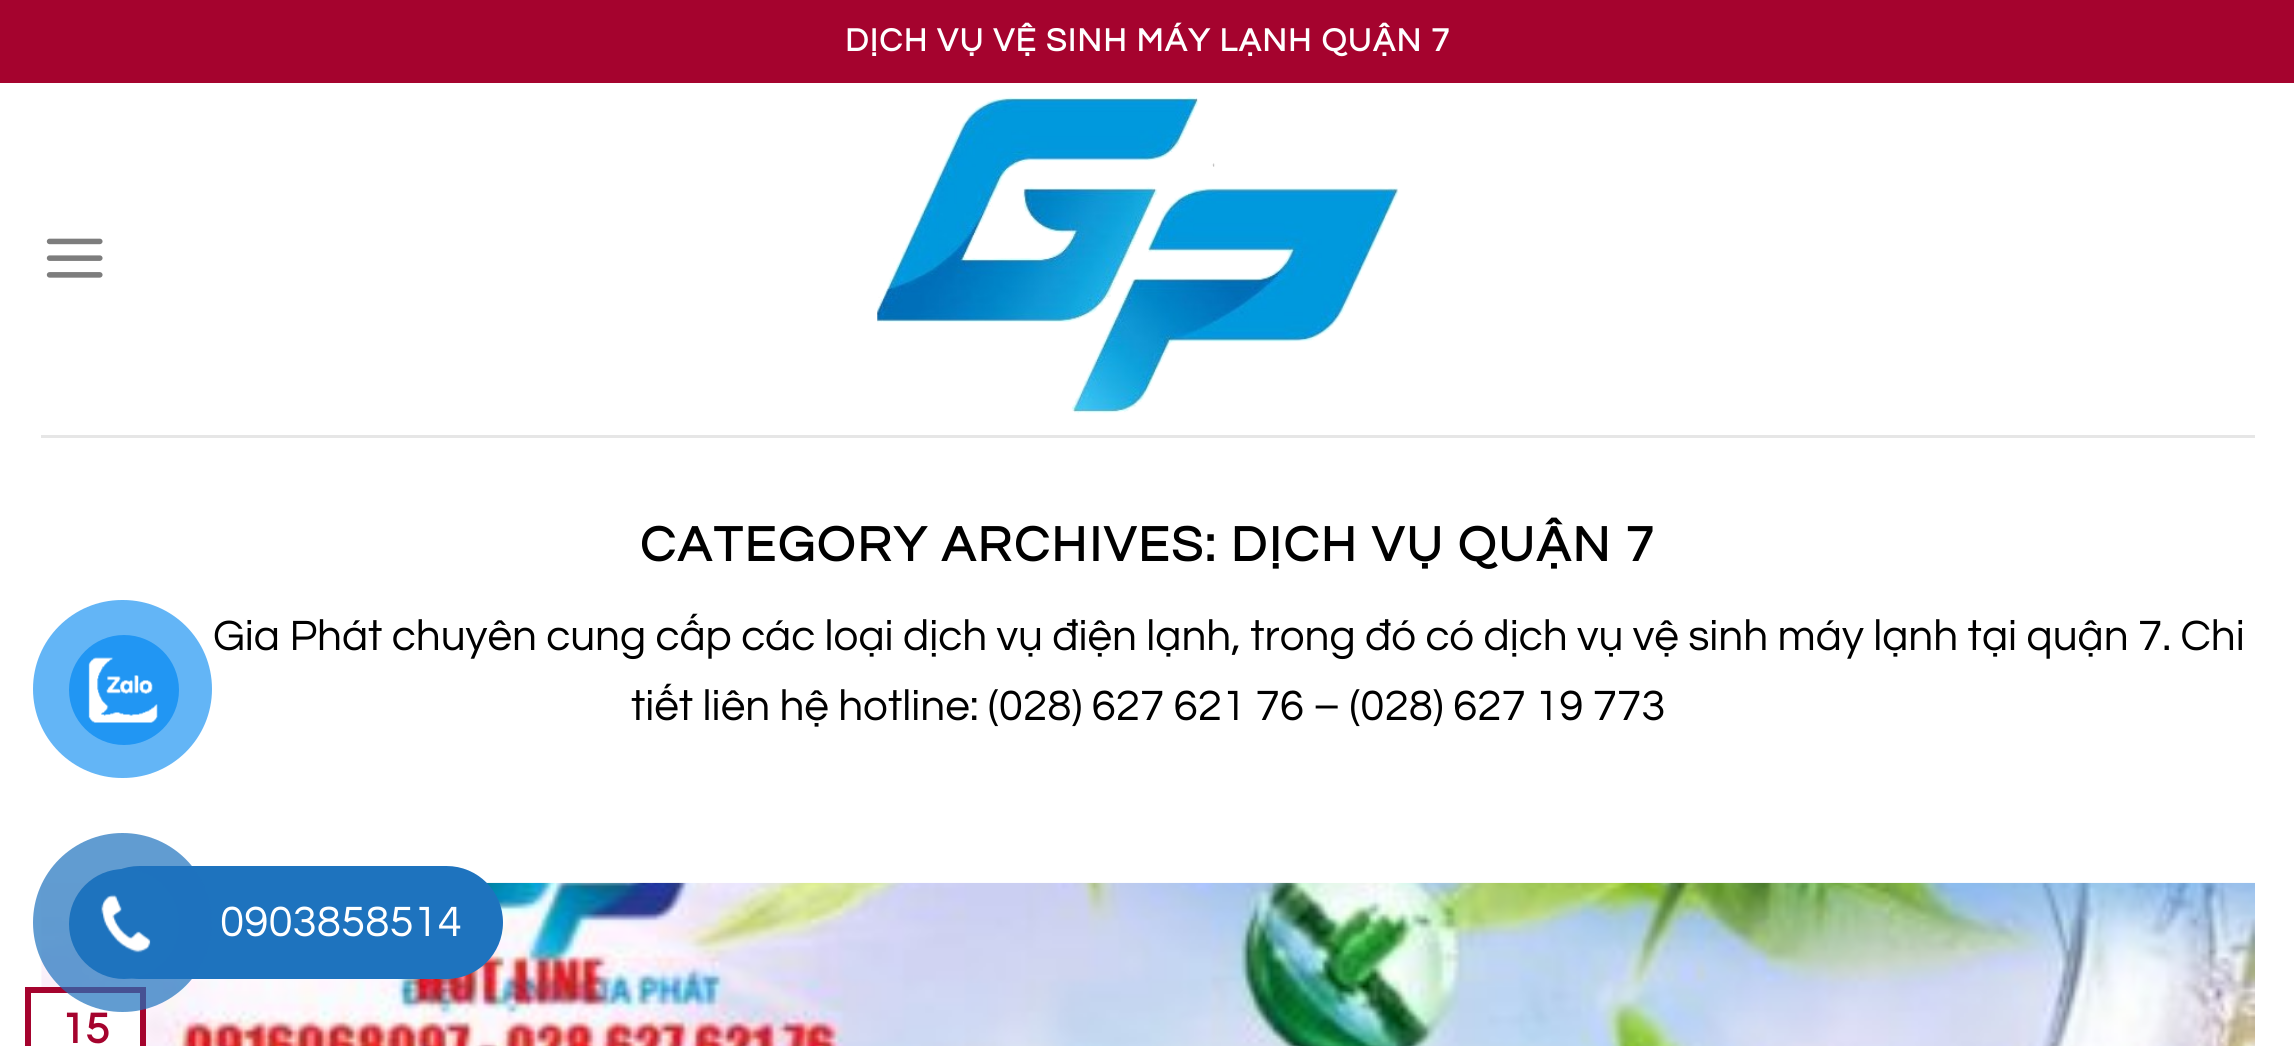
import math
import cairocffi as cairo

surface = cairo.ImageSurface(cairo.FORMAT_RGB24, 2294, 1046)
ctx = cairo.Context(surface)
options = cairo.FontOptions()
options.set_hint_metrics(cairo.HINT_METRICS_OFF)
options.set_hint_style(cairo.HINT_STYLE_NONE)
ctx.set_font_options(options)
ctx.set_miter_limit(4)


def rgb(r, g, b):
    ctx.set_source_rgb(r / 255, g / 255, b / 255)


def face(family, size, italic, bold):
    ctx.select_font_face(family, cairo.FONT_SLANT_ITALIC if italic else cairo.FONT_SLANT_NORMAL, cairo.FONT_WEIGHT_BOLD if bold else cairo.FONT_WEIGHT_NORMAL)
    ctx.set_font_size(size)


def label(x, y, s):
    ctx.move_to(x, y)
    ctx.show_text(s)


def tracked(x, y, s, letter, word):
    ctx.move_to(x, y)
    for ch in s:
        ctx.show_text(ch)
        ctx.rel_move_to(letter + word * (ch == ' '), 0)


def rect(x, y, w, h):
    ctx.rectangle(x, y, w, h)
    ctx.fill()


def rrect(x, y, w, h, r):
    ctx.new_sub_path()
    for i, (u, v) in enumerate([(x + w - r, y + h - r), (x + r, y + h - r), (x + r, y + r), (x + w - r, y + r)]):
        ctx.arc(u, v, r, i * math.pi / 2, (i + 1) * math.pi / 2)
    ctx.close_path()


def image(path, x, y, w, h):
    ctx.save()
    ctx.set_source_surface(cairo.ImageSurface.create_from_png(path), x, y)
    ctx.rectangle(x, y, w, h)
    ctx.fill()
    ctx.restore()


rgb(255, 255, 255)
ctx.paint()
rgb(165, 3, 46)
rect(0, 0, 2294, 83)
face('Questrial', 33, 0, 1)
rgb(255, 255, 255)
tracked(845, 51, 'DỊCH VỤ VỆ SINH MÁY LẠNH QUẬN 7', 1.65, 0)
image('image0.png', 46, 238, 57, 40)
image('image1.png', 877, 97, 522, 317)
rgb(230, 230, 230)
rect(41, 435, 2214, 3)
face('Questrial', 50.6, 0, 1)
rgb(0, 0, 0)
tracked(640, 561, 'CATEGORY ARCHIVES: DỊCH VỤ QUẬN 7', 2.5, 0)
face('Questrial', 44, 0, 0)
label(213, 650, 'Gia Phát chuyên cung cấp các loại dịch vụ điện lạnh, trong đó có dịch vụ vệ sinh máy lạnh tại quận 7. Chi')
label(631, 720, 'tiết liên hệ hotline: (028) 627 621 76 – (028) 627 19 773')
image('image2.png', 41, 882, 2214, 164)
rgb(255, 255, 255)
rect(41, 993, 99, 53)
ctx.rectangle(28, 990, 115, 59)
rgb(165, 3, 46)
ctx.set_line_width(6)
ctx.stroke()
face('Questrial', 44, 0, 1)
label(61, 1043, '15')
ctx.set_source_rgba(0.129, 0.588, 0.953, 0.7)
rrect(33, 600, 179, 178, 89)
ctx.fill()
rgb(33, 150, 243)
ctx.arc(124, 690, 55, 0, 2 * math.pi)
ctx.fill()
image('image3.png', 88, 657, 70, 66)
rgb(30, 115, 190)
rrect(83, 866, 420, 113, 56.5)
ctx.fill()
ctx.set_source_rgba(0.118, 0.451, 0.745, 0.7)
ctx.arc(122.5, 922.5, 89.5, 0, 2 * math.pi)
ctx.fill()
rgb(30, 115, 190)
ctx.arc(124, 924, 55, 0, 2 * math.pi)
ctx.fill()
image('image4.png', 101, 894, 50, 59)
face('Questrial', 44, 0, 0)
rgb(255, 255, 255)
label(220, 936, '0903858514')
surface.write_to_png('render.png')
